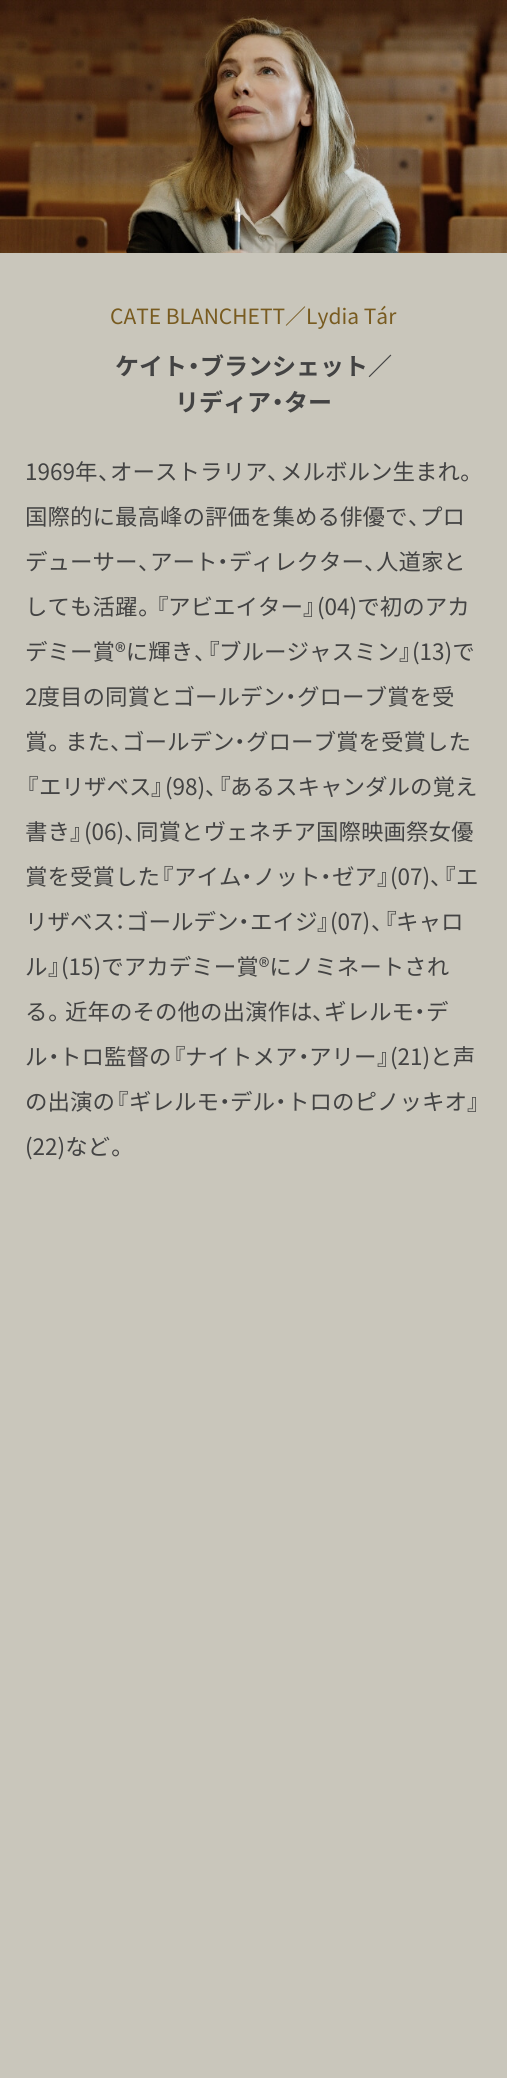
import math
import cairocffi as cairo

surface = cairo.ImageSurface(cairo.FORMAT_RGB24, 507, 2078)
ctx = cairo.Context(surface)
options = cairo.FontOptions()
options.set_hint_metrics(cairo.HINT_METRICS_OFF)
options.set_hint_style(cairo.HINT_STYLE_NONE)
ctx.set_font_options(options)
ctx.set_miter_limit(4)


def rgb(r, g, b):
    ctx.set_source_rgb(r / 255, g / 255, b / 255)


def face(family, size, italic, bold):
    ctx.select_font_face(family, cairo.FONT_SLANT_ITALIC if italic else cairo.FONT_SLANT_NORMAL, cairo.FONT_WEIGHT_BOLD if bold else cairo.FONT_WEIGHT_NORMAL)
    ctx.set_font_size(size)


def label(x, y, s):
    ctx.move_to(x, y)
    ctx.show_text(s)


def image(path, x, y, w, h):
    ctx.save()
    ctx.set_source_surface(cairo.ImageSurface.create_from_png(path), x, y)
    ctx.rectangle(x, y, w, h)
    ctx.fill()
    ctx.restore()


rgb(201, 198, 187)
ctx.paint()
image('image0.png', 0, 0, 507, 253)
face('Noto Sans JP', 21, 0, 0)
rgb(120, 91, 32)
label(110, 324, 'CATE BLANCHETT／Lydia Tár')
face('Noto Sans JP', 24, 0, 1)
rgb(67, 67, 67)
label(115, 375, 'ケイト')
face('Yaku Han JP', 24, 0, 1)
label(187, 375, '・')
face('Noto Sans JP', 24, 0, 1)
label(200, 375, 'ブランシェット／')
label(175, 411, 'リディア')
face('Yaku Han JP', 24, 0, 1)
label(271, 411, '・')
face('Noto Sans JP', 24, 0, 1)
label(284, 411, 'ター')
face('Noto Sans JP', 22.5, 0, 0)
label(25, 480, '1969年')
face('Yaku Han JP', 22.5, 0, 0)
label(98, 480, '、')
face('Noto Sans JP', 22.5, 0, 0)
label(110, 480, 'オーストラリア')
face('Yaku Han JP', 22.5, 0, 0)
label(267, 480, '、')
face('Noto Sans JP', 22.5, 0, 0)
label(280, 480, 'メルボルン生まれ')
face('Yaku Han JP', 22.5, 0, 0)
label(460, 480, '。')
face('Noto Sans JP', 22.5, 0, 0)
label(25, 525, '国際的に最高峰の評価を集める俳優で')
face('Yaku Han JP', 22.5, 0, 0)
label(408, 525, '、')
face('Noto Sans JP', 22.5, 0, 0)
label(420, 525, 'プロ')
label(25, 570, 'デューサー')
label(150, 570, 'アート')
face('Yaku Han JP', 22.5, 0, 0)
label(217, 570, '・')
face('Noto Sans JP', 22.5, 0, 0)
label(229, 570, 'ディレクター')
label(376, 570, '人道家と')
face('Yaku Han JP', 22.5, 0, 0)
label(138, 570, '、')
label(364, 570, '、')
face('Noto Sans JP', 22.5, 0, 0)
label(25, 615, 'しても活躍')
face('Yaku Han JP', 22.5, 0, 0)
label(138, 615, '。『')
face('Noto Sans JP', 22.5, 0, 0)
label(168, 615, 'アビエイター')
face('Yaku Han JP', 22.5, 0, 0)
label(303, 615, '』')
face('Noto Sans JP', 22.5, 0, 0)
label(317, 615, '(04)で初のアカ')
label(25, 660, 'デミー賞®に輝き')
face('Yaku Han JP', 22.5, 0, 0)
label(194, 660, '、『')
face('Noto Sans JP', 22.5, 0, 0)
label(219, 660, 'ブルージャスミン')
face('Yaku Han JP', 22.5, 0, 0)
label(399, 660, '』')
face('Noto Sans JP', 22.5, 0, 0)
label(412, 660, '(13)で')
label(25, 705, '2度目の同賞とゴールデン')
face('Yaku Han JP', 22.5, 0, 0)
label(285, 705, '・')
face('Noto Sans JP', 22.5, 0, 0)
label(297, 705, 'グローブ賞を受')
label(25, 750, '賞')
label(65, 750, 'また')
label(122, 750, 'ゴールデン')
face('Yaku Han JP', 22.5, 0, 0)
label(234, 750, '・')
face('Noto Sans JP', 22.5, 0, 0)
label(246, 750, 'グローブ賞を受賞した')
face('Yaku Han JP', 22.5, 0, 0)
label(48, 750, '。')
label(110, 750, '、')
label(25, 795, '『')
face('Noto Sans JP', 22.5, 0, 0)
label(39, 795, 'エリザベス')
face('Yaku Han JP', 22.5, 0, 0)
label(151, 795, '』')
face('Noto Sans JP', 22.5, 0, 0)
label(165, 795, '(98)')
face('Yaku Han JP', 22.5, 0, 0)
label(205, 795, '、『')
face('Noto Sans JP', 22.5, 0, 0)
label(230, 795, 'あるスキャンダルの覚え')
label(25, 840, '書き')
face('Yaku Han JP', 22.5, 0, 0)
label(70, 840, '』')
face('Noto Sans JP', 22.5, 0, 0)
label(84, 840, '(06)')
face('Yaku Han JP', 22.5, 0, 0)
label(124, 840, '、')
face('Noto Sans JP', 22.5, 0, 0)
label(136, 840, '同賞とヴェネチア国際映画祭女優')
label(25, 885, '賞を受賞した')
face('Yaku Han JP', 22.5, 0, 0)
label(160, 885, '『')
face('Noto Sans JP', 22.5, 0, 0)
label(174, 885, 'アイム')
face('Yaku Han JP', 22.5, 0, 0)
label(241, 885, '・')
face('Noto Sans JP', 22.5, 0, 0)
label(253, 885, 'ノット')
face('Yaku Han JP', 22.5, 0, 0)
label(320, 885, '・')
face('Noto Sans JP', 22.5, 0, 0)
label(332, 885, 'ゼア')
face('Yaku Han JP', 22.5, 0, 0)
label(377, 885, '』')
face('Noto Sans JP', 22.5, 0, 0)
label(390, 885, '(07)')
face('Yaku Han JP', 22.5, 0, 0)
label(430, 885, '、『')
face('Noto Sans JP', 22.5, 0, 0)
label(456, 885, 'エ')
label(25, 930, 'リザベス')
face('Yaku Han JP', 22.5, 0, 0)
label(115, 930, '：')
face('Noto Sans JP', 22.5, 0, 0)
label(126, 930, 'ゴールデン')
face('Yaku Han JP', 22.5, 0, 0)
label(238, 930, '・')
face('Noto Sans JP', 22.5, 0, 0)
label(250, 930, 'エイジ')
face('Yaku Han JP', 22.5, 0, 0)
label(317, 930, '』')
face('Noto Sans JP', 22.5, 0, 0)
label(330, 930, '(07)')
face('Yaku Han JP', 22.5, 0, 0)
label(371, 930, '、『')
face('Noto Sans JP', 22.5, 0, 0)
label(396, 930, 'キャロ')
label(25, 975, 'ル')
face('Yaku Han JP', 22.5, 0, 0)
label(48, 975, '』')
face('Noto Sans JP', 22.5, 0, 0)
label(61, 975, '(15)でアカデミー賞®にノミネートされ')
label(25, 1020, 'る')
label(65, 1020, '近年のその他の出演作は')
label(324, 1020, 'ギレルモ')
face('Yaku Han JP', 22.5, 0, 0)
label(414, 1020, '・')
face('Noto Sans JP', 22.5, 0, 0)
label(426, 1020, 'デ')
face('Yaku Han JP', 22.5, 0, 0)
label(48, 1020, '。')
label(312, 1020, '、')
face('Noto Sans JP', 22.5, 0, 0)
label(25, 1065, 'ル')
face('Yaku Han JP', 22.5, 0, 0)
label(48, 1065, '・')
face('Noto Sans JP', 22.5, 0, 0)
label(59, 1065, 'トロ監督の')
face('Yaku Han JP', 22.5, 0, 0)
label(172, 1065, '『')
face('Noto Sans JP', 22.5, 0, 0)
label(185, 1065, 'ナイトメア')
face('Yaku Han JP', 22.5, 0, 0)
label(298, 1065, '・')
face('Noto Sans JP', 22.5, 0, 0)
label(309, 1065, 'アリー')
face('Yaku Han JP', 22.5, 0, 0)
label(377, 1065, '』')
face('Noto Sans JP', 22.5, 0, 0)
label(390, 1065, '(21)と声')
label(25, 1110, 'の出演の')
face('Yaku Han JP', 22.5, 0, 0)
label(115, 1110, '『')
face('Noto Sans JP', 22.5, 0, 0)
label(129, 1110, 'ギレルモ')
face('Yaku Han JP', 22.5, 0, 0)
label(219, 1110, '・')
face('Noto Sans JP', 22.5, 0, 0)
label(230, 1110, 'デル')
face('Yaku Han JP', 22.5, 0, 0)
label(275, 1110, '・')
face('Noto Sans JP', 22.5, 0, 0)
label(287, 1110, 'トロのピノッキオ')
face('Yaku Han JP', 22.5, 0, 0)
label(467, 1110, '』')
face('Noto Sans JP', 22.5, 0, 0)
label(25, 1155, '(22)など')
face('Yaku Han JP', 22.5, 0, 0)
label(111, 1155, '。')
surface.write_to_png('render.png')
